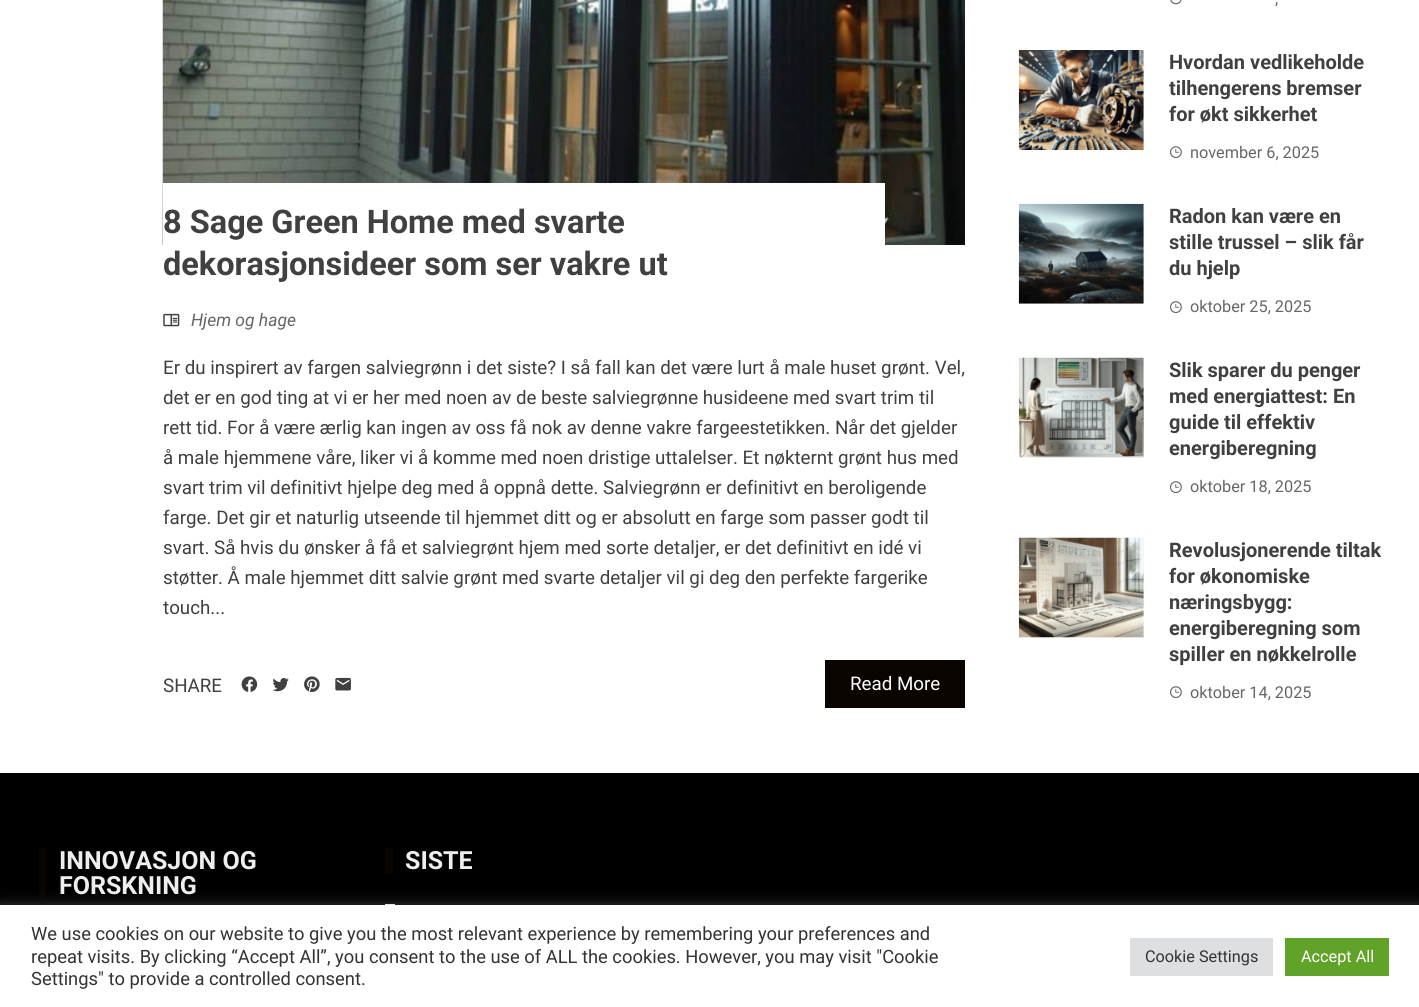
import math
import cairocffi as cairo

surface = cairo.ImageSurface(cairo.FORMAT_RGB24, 1419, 1007)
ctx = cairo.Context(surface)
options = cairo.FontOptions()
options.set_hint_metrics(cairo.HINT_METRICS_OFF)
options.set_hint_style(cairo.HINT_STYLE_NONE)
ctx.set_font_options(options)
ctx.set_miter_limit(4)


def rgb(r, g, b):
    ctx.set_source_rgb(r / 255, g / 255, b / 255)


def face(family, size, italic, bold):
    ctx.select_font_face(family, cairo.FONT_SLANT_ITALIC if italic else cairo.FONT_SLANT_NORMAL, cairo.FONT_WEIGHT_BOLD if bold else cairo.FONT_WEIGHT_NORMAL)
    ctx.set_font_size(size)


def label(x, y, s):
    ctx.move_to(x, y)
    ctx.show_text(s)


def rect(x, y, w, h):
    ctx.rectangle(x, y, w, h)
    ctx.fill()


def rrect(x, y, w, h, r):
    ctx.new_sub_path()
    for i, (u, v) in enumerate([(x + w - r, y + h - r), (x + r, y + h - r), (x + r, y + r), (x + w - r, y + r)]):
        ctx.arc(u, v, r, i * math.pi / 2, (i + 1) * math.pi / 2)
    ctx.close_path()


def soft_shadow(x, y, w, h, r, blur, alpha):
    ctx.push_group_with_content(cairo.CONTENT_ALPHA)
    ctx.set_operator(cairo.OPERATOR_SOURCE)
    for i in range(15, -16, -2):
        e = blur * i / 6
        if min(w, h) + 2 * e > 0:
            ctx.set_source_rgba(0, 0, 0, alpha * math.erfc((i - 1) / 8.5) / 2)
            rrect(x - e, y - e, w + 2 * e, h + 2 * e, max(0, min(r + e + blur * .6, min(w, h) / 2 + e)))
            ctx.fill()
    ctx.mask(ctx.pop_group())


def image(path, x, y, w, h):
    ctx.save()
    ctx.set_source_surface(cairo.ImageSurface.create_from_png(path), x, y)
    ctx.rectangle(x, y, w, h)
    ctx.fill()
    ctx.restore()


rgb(255, 255, 255)
ctx.paint()
image('image0.png', 162, 0, 803, 245)
rgb(255, 255, 255)
rect(163, 183, 722, 62)
face('Roboto', 32.5, 0, 1)
rgb(64, 64, 64)
label(163, 233, '8 Sage Green Home med svarte')
label(163, 275, 'dekorasjonsideer som ser vakre ut')
image('image1.png', 163, 313, 17, 14)
face('Roboto', 17.5, 1, 0)
rgb(102, 102, 102)
label(191, 326, 'Hjem og hage')
face('Roboto', 18.75, 0, 0)
rgb(64, 64, 64)
label(163, 374, 'Er du inspirert av fargen salviegrønn i det siste? I så fall kan det være lurt å male huset grønt. Vel,')
label(163, 404, 'det er en god ting at vi er her med noen av de beste salviegrønne husideene med svart trim til')
label(163, 434, 'rett tid. For å være ærlig kan ingen av oss få nok av denne vakre fargeestetikken. Når det gjelder')
label(163, 464, 'å male hjemmene våre, liker vi å komme med noen dristige uttalelser. Et nøkternt grønt hus med')
label(163, 494, 'svart trim vil definitivt hjelpe deg med å oppnå dette. Salviegrønn er definitivt en beroligende')
label(163, 524, 'farge. Det gir et naturlig utseende til hjemmet ditt og er absolutt en farge som passer godt til')
label(163, 554, 'svart. Så hvis du ønsker å få et salviegrønt hjem med sorte detaljer, er det definitivt en idé vi')
label(163, 584, 'støtter. Å male hjemmet ditt salvie grønt med svarte detaljer vil gi deg den perfekte fargerike')
label(163, 614, 'touch...')
label(163, 692, 'SHARE')
image('image2.png', 241, 676, 17, 16)
image('image3.png', 272, 678, 17, 14)
image('image4.png', 304, 676, 16, 16)
image('image5.png', 335, 677, 16, 14)
rgb(10, 4, 0)
rect(825, 660, 140, 48)
rgb(255, 255, 255)
label(850, 690, 'Read More')
image('image6.png', 1170, 0, 12, 5)
face('Roboto', 16.25, 0, 0)
rgb(102, 102, 102)
label(1275, 4, ',')
rgb(247, 247, 247)
rect(1143, 50, 1, 100)
image('image7.png', 1018, 50, 126, 100)
face('Roboto', 20, 0, 1)
rgb(64, 64, 64)
label(1169, 69, 'Hvordan vedlikeholde')
label(1169, 95, 'tilhengerens bremser')
label(1169, 121, 'for økt sikkerhet')
image('image8.png', 1170, 146, 12, 13)
face('Roboto', 16.25, 0, 0)
rgb(102, 102, 102)
label(1190, 158, 'november 6, 2025')
rgb(247, 247, 247)
rect(1019, 204, 125, 100)
image('image9.png', 1018, 203, 126, 101)
face('Roboto', 20, 0, 1)
rgb(64, 64, 64)
label(1169, 223, 'Radon kan være en')
label(1169, 249, 'stille trussel – slik får')
label(1169, 275, 'du hjelp')
image('image8.png', 1170, 301, 12, 13)
face('Roboto', 16.25, 0, 0)
rgb(102, 102, 102)
label(1190, 312, 'oktober 25, 2025')
rgb(247, 247, 247)
rect(1019, 358, 125, 100)
image('image10.png', 1018, 357, 126, 101)
face('Roboto', 20, 0, 1)
rgb(64, 64, 64)
label(1169, 377, 'Slik sparer du penger')
label(1169, 403, 'med energiattest: En')
label(1169, 429, 'guide til effektiv')
label(1169, 455, 'energiberegning')
image('image8.png', 1170, 481, 12, 13)
face('Roboto', 16.25, 0, 0)
rgb(102, 102, 102)
label(1190, 492, 'oktober 18, 2025')
rgb(247, 247, 247)
rect(1019, 538, 125, 100)
image('image11.png', 1018, 537, 126, 101)
face('Roboto', 20, 0, 1)
rgb(64, 64, 64)
label(1169, 557, 'Revolusjonerende tiltak')
label(1169, 583, 'for økonomiske')
label(1169, 609, 'næringsbygg:')
label(1169, 635, 'energiberegning som')
label(1169, 661, 'spiller en nøkkelrolle')
image('image8.png', 1170, 686, 12, 13)
face('Roboto', 16.25, 0, 0)
rgb(102, 102, 102)
label(1190, 698, 'oktober 14, 2025')
rgb(0, 0, 0)
rect(0, 773, 1419, 132)
rgb(10, 4, 0)
rect(39, 848, 7, 50)
face('Roboto', 25, 0, 1)
rgb(238, 238, 238)
label(59, 869, 'INNOVASJON OG')
label(59, 894, 'FORSKNING')
rgb(10, 4, 0)
rect(385, 848, 8, 25)
rgb(238, 238, 238)
label(405, 869, 'SISTE')
rgb(240, 240, 240)
rect(385, 904, 10, 1)
ctx.new_path()
ctx.arc(390.5, 916.5, 9.5, 0, 2 * math.pi)
ctx.set_line_width(6)
ctx.stroke()
rgb(172, 171, 171)
soft_shadow(0, 904, 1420, 102, 0, 6, 0.3)
rgb(255, 255, 255)
rect(0, 905, 1419, 102)
face('Roboto', 18.35, 0, 0)
rgb(51, 51, 51)
label(31, 940, 'We use cookies on our website to give you the most relevant experience by remembering your preferences and')
label(31, 963, 'repeat visits. By clicking “Accept All”, you consent to the use of ALL the cookies. However, you may visit "Cookie')
label(31, 985, 'Settings" to provide a controlled consent.')
rgb(222, 223, 224)
rect(1130, 938, 143, 38)
face('Roboto', 16.25, 0, 0)
rgb(51, 51, 51)
label(1145, 962, 'Cookie Settings')
rgb(97, 162, 41)
rect(1285, 938, 104, 38)
rgb(255, 255, 255)
label(1301, 962, 'Accept All')
surface.write_to_png('render.png')
